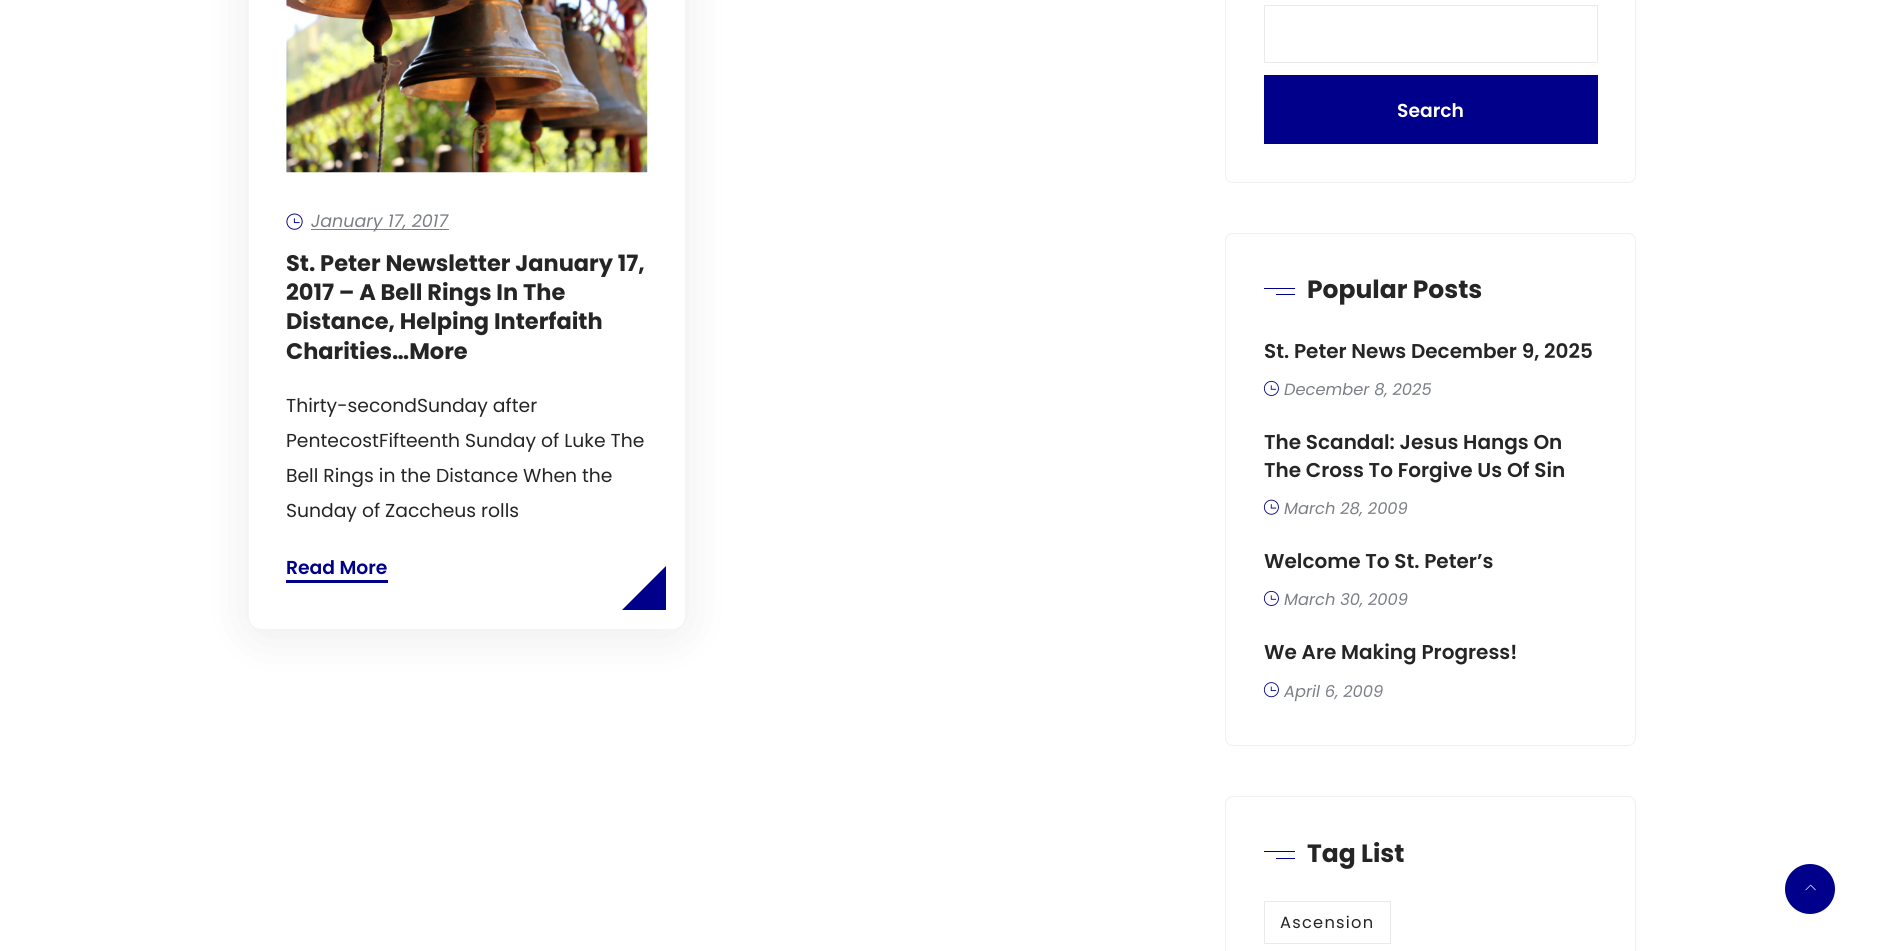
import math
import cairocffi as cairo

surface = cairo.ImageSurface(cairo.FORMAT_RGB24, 1885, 951)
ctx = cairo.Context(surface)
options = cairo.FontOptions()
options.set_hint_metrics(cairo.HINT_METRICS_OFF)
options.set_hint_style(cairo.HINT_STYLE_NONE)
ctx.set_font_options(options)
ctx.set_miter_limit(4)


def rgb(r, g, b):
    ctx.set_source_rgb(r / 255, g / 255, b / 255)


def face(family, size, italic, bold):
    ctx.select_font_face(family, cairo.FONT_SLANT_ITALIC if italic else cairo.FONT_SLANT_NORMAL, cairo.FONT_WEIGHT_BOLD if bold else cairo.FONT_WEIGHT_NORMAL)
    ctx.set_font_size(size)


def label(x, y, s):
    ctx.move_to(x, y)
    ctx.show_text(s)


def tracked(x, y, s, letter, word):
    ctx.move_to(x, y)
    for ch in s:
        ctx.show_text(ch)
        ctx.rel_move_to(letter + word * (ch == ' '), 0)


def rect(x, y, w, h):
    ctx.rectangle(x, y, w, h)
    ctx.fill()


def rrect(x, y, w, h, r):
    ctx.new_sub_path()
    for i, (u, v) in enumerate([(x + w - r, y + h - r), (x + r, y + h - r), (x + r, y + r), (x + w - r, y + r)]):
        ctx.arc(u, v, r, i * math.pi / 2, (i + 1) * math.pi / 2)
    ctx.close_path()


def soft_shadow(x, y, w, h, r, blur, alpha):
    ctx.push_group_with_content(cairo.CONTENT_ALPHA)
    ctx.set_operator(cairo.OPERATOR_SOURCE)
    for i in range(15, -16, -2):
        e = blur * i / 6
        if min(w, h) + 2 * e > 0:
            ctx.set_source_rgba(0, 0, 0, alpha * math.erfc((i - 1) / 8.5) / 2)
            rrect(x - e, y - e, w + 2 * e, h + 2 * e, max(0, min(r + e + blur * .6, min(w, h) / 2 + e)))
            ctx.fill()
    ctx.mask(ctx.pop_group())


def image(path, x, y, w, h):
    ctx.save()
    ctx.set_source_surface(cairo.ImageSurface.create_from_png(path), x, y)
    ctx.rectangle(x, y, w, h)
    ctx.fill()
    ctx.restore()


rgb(255, 255, 255)
ctx.paint()
rgb(0, 0, 0)
soft_shadow(249, -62, 436, 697, 13, 25, 0.08)
rgb(255, 255, 255)
rrect(249, -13, 436, 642, 13)
ctx.fill()
image('image0.png', 286, 0, 362, 173)
image('image1.png', 286, 213, 17, 17)
rgb(123, 127, 134)
rect(311, 229, 138, 1)
face('Poppins', 17.5, 1, 0)
label(311, 227, 'January 17, 2017')
face('Poppins', 22.5, 0, 1)
rgb(37, 37, 37)
label(286, 271, 'St. Peter Newsletter January 17,')
label(286, 300, '2017 – A Bell Rings In The')
label(286, 329, 'Distance, Helping Interfaith')
label(286, 359, 'Charities…More')
face('Poppins', 18.75, 0, 0)
label(286, 412, 'Thirty-secondSunday after')
label(286, 447, 'PentecostFifteenth Sunday of Luke The')
label(286, 482, 'Bell Rings in the Distance When the')
label(286, 517, 'Sunday of Zaccheus rolls')
face('Poppins SemiBold', 18.75, 0, 0)
rgb(0, 0, 139)
label(286, 574, 'Read More')
rect(286, 580, 102, 3)
ctx.new_path()
ctx.move_to(666, 610)
ctx.line_to(622, 610)
ctx.line_to(666, 566)
ctx.close_path()
ctx.fill()
rrect(1225.5, -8.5, 410, 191, 7.5)
rgb(240, 240, 240)
ctx.set_line_width(1)
ctx.stroke()
ctx.rectangle(1264.5, 5.5, 333, 57)
rgb(234, 234, 234)
ctx.stroke()
rgb(0, 0, 139)
rect(1264, 75, 334, 69)
rgb(255, 255, 255)
label(1397, 117, 'Search')
rrect(1225.5, 233.5, 410, 512, 7.5)
rgb(240, 240, 240)
ctx.stroke()
rgb(0, 0, 139)
rect(1264, 288, 31, 1)
face('Poppins', 25, 0, 1)
rgb(37, 37, 37)
label(1307, 298, 'Popular Posts')
rgb(0, 0, 139)
rect(1276, 294, 19, 1)
face('Poppins SemiBold', 20, 0, 0)
rgb(37, 37, 37)
label(1264, 358, 'St. Peter News December 9, 2025')
image('image2.png', 1263, 380, 16, 16)
face('Poppins', 16.25, 1, 0)
rgb(123, 127, 134)
label(1284, 395, 'December 8, 2025')
face('Poppins SemiBold', 20, 0, 0)
rgb(37, 37, 37)
label(1264, 449, 'The Scandal: Jesus Hangs On')
label(1264, 477, 'The Cross To Forgive Us Of Sin')
image('image3.png', 1263, 499, 16, 16)
face('Poppins', 16.25, 1, 0)
rgb(123, 127, 134)
label(1284, 514, 'March 28, 2009')
face('Poppins SemiBold', 20, 0, 0)
rgb(37, 37, 37)
label(1264, 568, 'Welcome To St. Peter’s')
image('image2.png', 1263, 590, 16, 16)
face('Poppins', 16.25, 1, 0)
rgb(123, 127, 134)
label(1284, 605, 'March 30, 2009')
face('Poppins SemiBold', 20, 0, 0)
rgb(37, 37, 37)
label(1264, 659, 'We Are Making Progress!')
image('image4.png', 1263, 682, 16, 16)
face('Poppins', 16.25, 1, 0)
rgb(123, 127, 134)
label(1284, 697, 'April 6, 2009')
rrect(1225.5, 796.5, 410, 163, 7.5)
rgb(240, 240, 240)
ctx.stroke()
rgb(0, 0, 139)
rect(1264, 851, 31, 1)
face('Poppins', 25, 0, 1)
rgb(37, 37, 37)
label(1307, 862, 'Tag List')
rgb(0, 0, 139)
rect(1276, 858, 19, 1)
ctx.rectangle(1264.5, 901.5, 126, 42)
rgb(234, 234, 234)
ctx.stroke()
face('Poppins', 16.25, 0, 0)
rgb(37, 37, 37)
tracked(1280, 928, 'Ascension', 1.25, 0)
rgb(0, 0, 139)
ctx.new_path()
ctx.arc(1810, 889, 25, 0, 2 * math.pi)
ctx.fill()
image('image5.png', 1805, 884, 11, 7)
surface.write_to_png('render.png')
